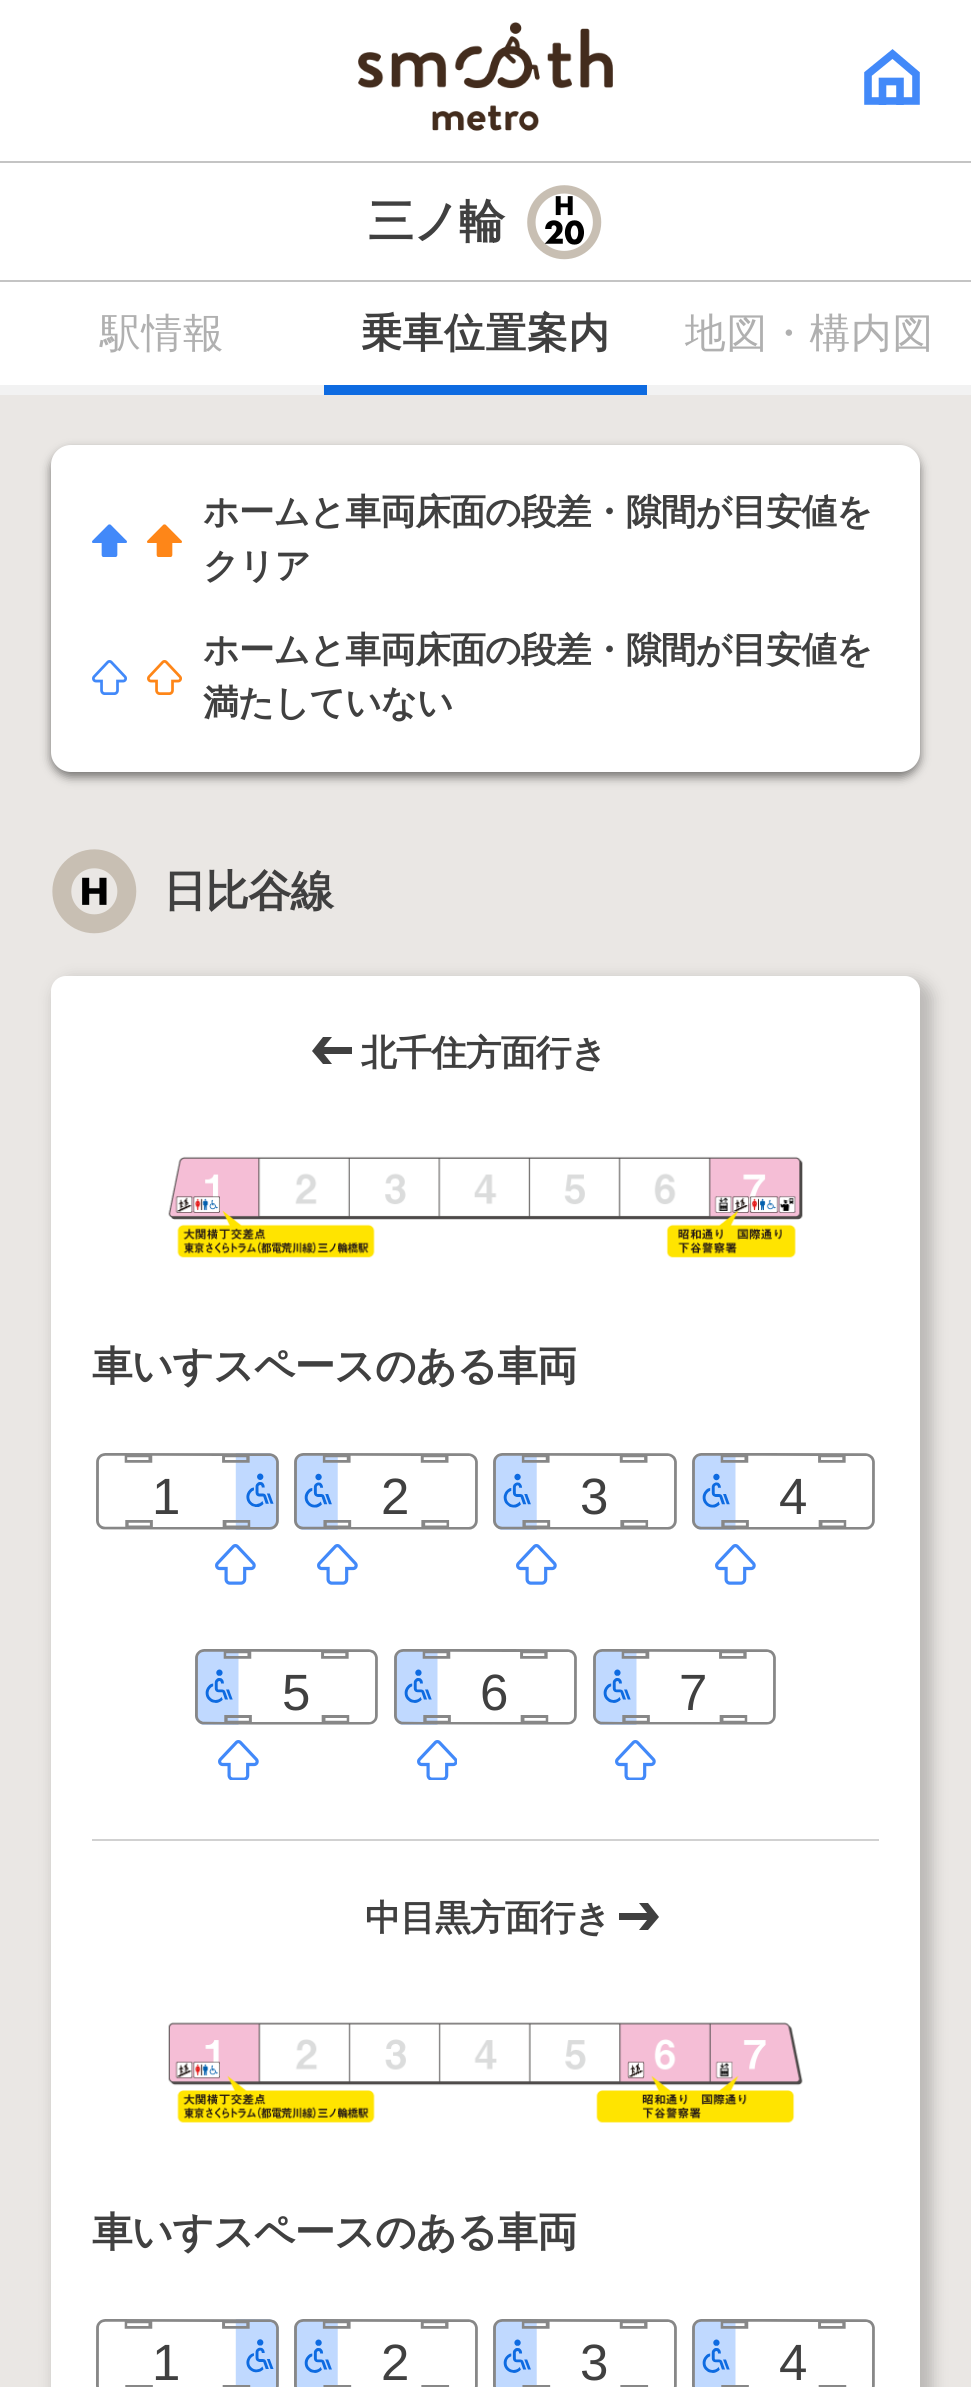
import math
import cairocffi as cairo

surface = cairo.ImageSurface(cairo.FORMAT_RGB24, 971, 2387)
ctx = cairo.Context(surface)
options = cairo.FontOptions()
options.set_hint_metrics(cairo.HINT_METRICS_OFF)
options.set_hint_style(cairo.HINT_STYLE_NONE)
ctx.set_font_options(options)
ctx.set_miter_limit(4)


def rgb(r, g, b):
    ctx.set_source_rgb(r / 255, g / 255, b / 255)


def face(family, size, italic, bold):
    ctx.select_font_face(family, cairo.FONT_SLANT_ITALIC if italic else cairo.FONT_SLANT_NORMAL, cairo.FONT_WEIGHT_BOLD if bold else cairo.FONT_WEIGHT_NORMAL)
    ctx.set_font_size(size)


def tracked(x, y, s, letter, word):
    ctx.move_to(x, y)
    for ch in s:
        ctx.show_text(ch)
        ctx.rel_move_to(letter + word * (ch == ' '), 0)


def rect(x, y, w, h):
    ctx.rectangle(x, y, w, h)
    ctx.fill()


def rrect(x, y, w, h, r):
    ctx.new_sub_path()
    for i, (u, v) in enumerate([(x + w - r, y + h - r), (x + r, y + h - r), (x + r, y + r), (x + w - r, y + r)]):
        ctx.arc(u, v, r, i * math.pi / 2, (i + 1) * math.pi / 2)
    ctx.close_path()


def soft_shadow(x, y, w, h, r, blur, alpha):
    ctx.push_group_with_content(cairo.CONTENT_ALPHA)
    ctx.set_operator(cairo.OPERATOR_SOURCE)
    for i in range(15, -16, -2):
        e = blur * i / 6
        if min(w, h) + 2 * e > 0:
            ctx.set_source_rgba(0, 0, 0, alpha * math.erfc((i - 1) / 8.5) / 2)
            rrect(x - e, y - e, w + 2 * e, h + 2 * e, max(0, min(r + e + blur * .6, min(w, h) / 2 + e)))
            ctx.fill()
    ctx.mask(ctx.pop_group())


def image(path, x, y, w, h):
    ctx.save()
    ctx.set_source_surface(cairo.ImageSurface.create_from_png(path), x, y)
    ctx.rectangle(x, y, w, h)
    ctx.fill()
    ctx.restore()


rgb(234, 231, 228)
ctx.paint()
rgb(255, 255, 255)
rect(0, 0, 971, 161)
rgb(196, 196, 196)
rect(0, 161, 971, 2)
image('image0.png', 358, 22, 255, 109)
ctx.new_path()
ctx.move_to(882.5, 105)
ctx.line_to(882.5, 81.5)
ctx.line_to(900, 81.5)
ctx.line_to(900, 105)
ctx.move_to(892.5, 54)
ctx.line_to(868, 74)
ctx.line_to(868, 101)
ctx.line_to(916, 101)
ctx.line_to(916, 74)
ctx.close_path()
rgb(66, 137, 249)
ctx.set_line_width(7.6)
ctx.stroke()
rgb(255, 255, 255)
rect(0, 163, 971, 117)
rgb(196, 196, 196)
rect(0, 280, 971, 2)
face('WenQuanYi Zen Hei', 46, 0, 1)
rgb(64, 64, 64)
tracked(368, 237, '三ノ輪', -1, 0)
image('image1.png', 527, 185, 75, 75)
rgb(255, 255, 255)
rect(0, 282, 971, 103)
rgb(242, 242, 242)
rect(0, 385, 324, 10)
face('WenQuanYi Zen Hei Medium', 40.75, 0, 0)
rgb(176, 176, 176)
tracked(100, 347, '駅情報', 0.75, 0)
rgb(14, 107, 225)
rect(324, 385, 323, 10)
face('WenQuanYi Zen Hei', 40.75, 0, 1)
rgb(64, 64, 64)
tracked(361, 347, '乗車位置案内', 0.75, 0)
rgb(242, 242, 242)
rect(647, 385, 324, 10)
face('WenQuanYi Zen Hei Medium', 40.75, 0, 0)
rgb(176, 176, 176)
tracked(685, 347, '地図・構内図', 0.75, 0)
rgb(0, 0, 0)
soft_shadow(51, 450, 869, 327, 20, 5, 0.5)
rgb(255, 255, 255)
rrect(51, 445, 869, 327, 20)
ctx.fill()
image('image2.png', 92, 524, 35, 33)
image('image3.png', 147, 524, 35, 33)
face('WenQuanYi Zen Hei', 35.7, 0, 1)
rgb(64, 64, 64)
tracked(203, 524, 'ホームと車両床面の段差・隙間が目安値を', -0.75, 0)
tracked(203, 578, 'クリア', -0.75, 0)
image('image4.png', 92, 660, 35, 35)
image('image5.png', 147, 660, 35, 35)
tracked(203, 662, 'ホームと車両床面の段差・隙間が目安値を', -0.75, 0)
tracked(203, 715, '満たしていない', -0.75, 0)
image('image6.png', 52, 849, 85, 85)
face('WenQuanYi Zen Hei', 43.5, 0, 1)
tracked(163, 906, '日比谷線', -1, 0)
rgb(0, 0, 0)
soft_shadow(54, 979, 879, 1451, 20, 7.5, 0.2)
rgb(255, 255, 255)
rrect(51, 976, 869, 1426, 15)
ctx.fill()
rgb(209, 209, 209)
rect(92, 1839, 787, 2)
rgb(64, 64, 64)
ctx.set_fill_rule(cairo.FILL_RULE_EVEN_ODD)
ctx.new_path()
ctx.move_to(323, 1037)
ctx.line_to(312, 1051)
ctx.line_to(323, 1064)
ctx.line_to(332, 1064)
ctx.line_to(324, 1054)
ctx.line_to(352, 1054)
ctx.line_to(352, 1047)
ctx.line_to(324, 1047)
ctx.line_to(332, 1037)
ctx.close_path()
ctx.fill()
face('WenQuanYi Zen Hei', 35.7, 0, 1)
tracked(361, 1065, '北千住方面行き', -0.75, 0)
image('image7.png', 168, 1156, 635, 102)
face('WenQuanYi Zen Hei', 40.75, 0, 1)
tracked(92, 1380, '車いすスペースのある車両', -1, 0)
image('image8.png', 96, 1453, 183, 77)
face('Liberation Sans', 51, 0, 0)
tracked(152, 1514, '1', -1, 0)
image('image9.png', 215, 1544, 41, 41)
image('image10.png', 294, 1453, 184, 77)
tracked(381, 1514, '2', -1, 0)
image('image9.png', 317, 1544, 41, 41)
image('image11.png', 493, 1453, 184, 77)
tracked(580, 1514, '3', -1, 0)
image('image9.png', 516, 1544, 41, 41)
image('image12.png', 692, 1453, 183, 77)
tracked(779, 1514, '4', -1, 0)
image('image9.png', 715, 1544, 41, 41)
image('image13.png', 195, 1649, 183, 76)
tracked(282, 1710, '5', -1, 0)
image('image14.png', 218, 1740, 41, 40)
image('image15.png', 394, 1649, 183, 76)
tracked(480, 1710, '6', -1, 0)
image('image16.png', 417, 1740, 40, 40)
image('image17.png', 593, 1649, 183, 76)
tracked(679, 1710, '7', -1, 0)
image('image14.png', 615, 1740, 41, 40)
face('WenQuanYi Zen Hei', 35.7, 0, 1)
tracked(365, 1930, '中目黒方面行き', -0.75, 0)
ctx.new_path()
ctx.move_to(648, 1903)
ctx.line_to(659, 1917)
ctx.line_to(648, 1930)
ctx.line_to(639, 1930)
ctx.line_to(647, 1920)
ctx.line_to(619, 1920)
ctx.line_to(619, 1913)
ctx.line_to(647, 1913)
ctx.line_to(639, 1903)
ctx.close_path()
ctx.fill()
image('image18.png', 168, 2022, 635, 101)
face('WenQuanYi Zen Hei', 40.75, 0, 1)
tracked(92, 2246, '車いすスペースのある車両', -1, 0)
image('image19.png', 96, 2319, 183, 68)
face('Liberation Sans', 51, 0, 0)
tracked(152, 2380, '1', -1, 0)
image('image20.png', 294, 2319, 184, 68)
tracked(381, 2380, '2', -1, 0)
image('image21.png', 493, 2319, 184, 68)
tracked(580, 2380, '3', -1, 0)
image('image22.png', 692, 2319, 183, 68)
tracked(779, 2380, '4', -1, 0)
surface.write_to_png('render.png')
